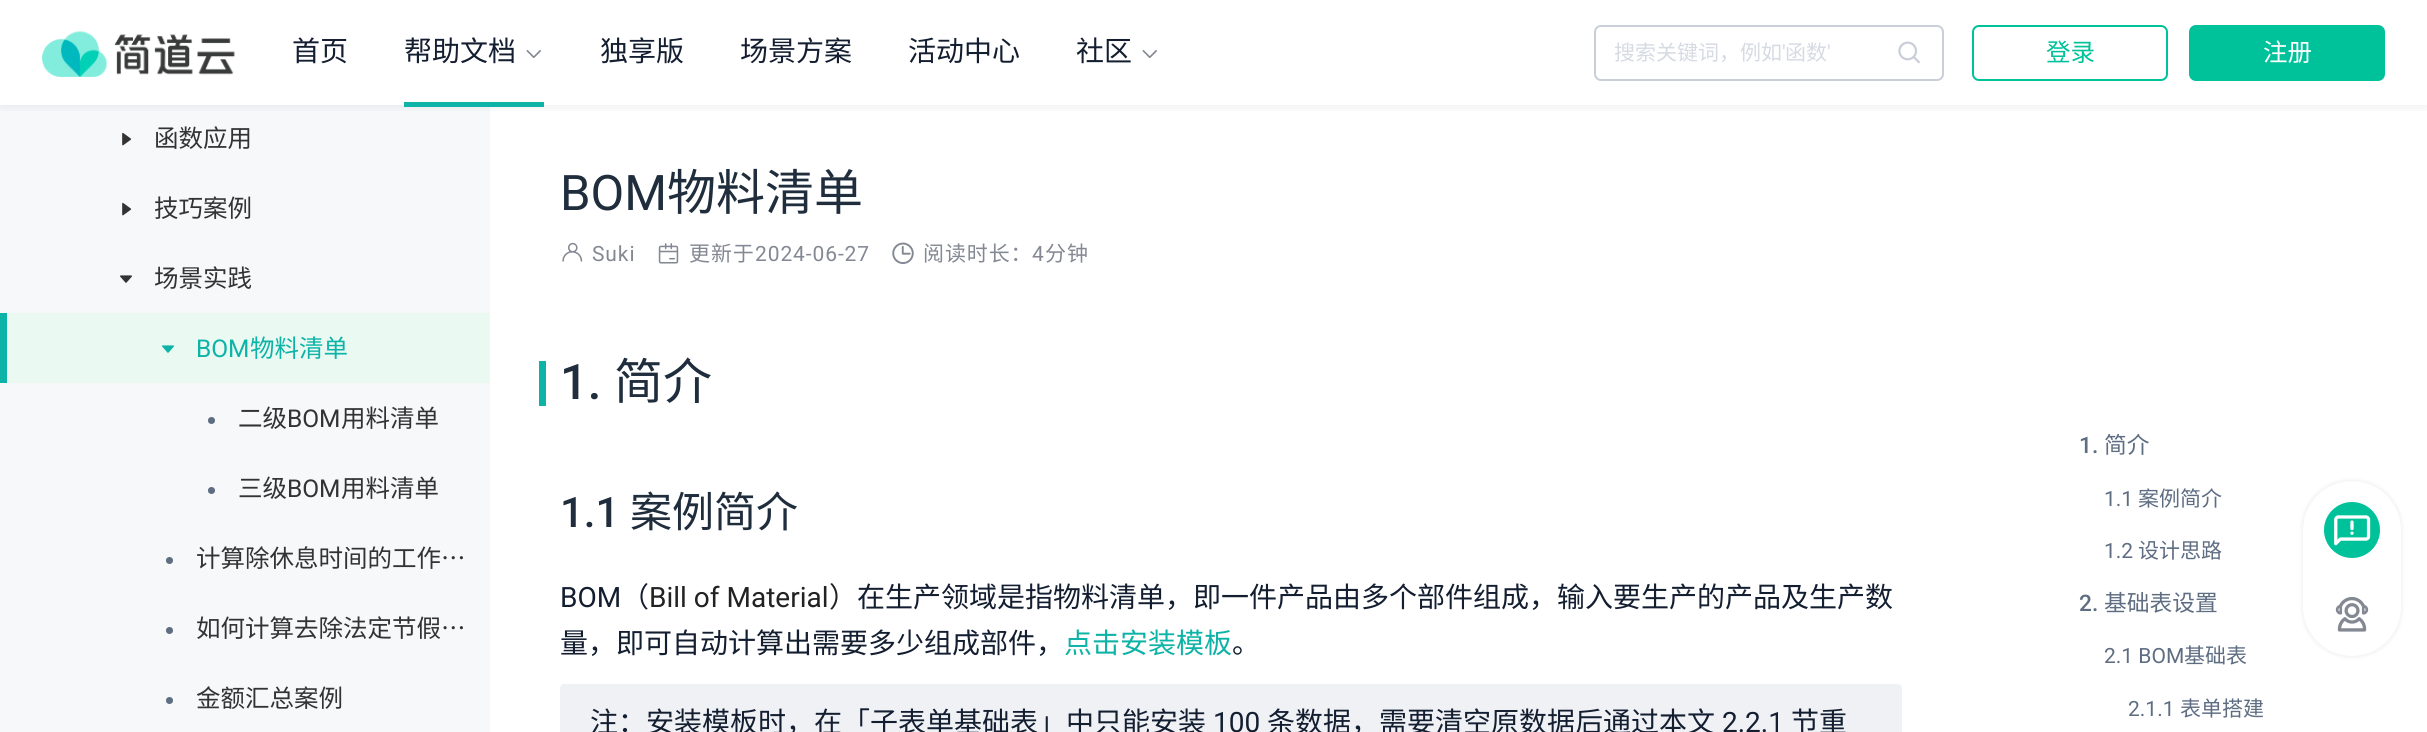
import math
import cairocffi as cairo

surface = cairo.ImageSurface(cairo.FORMAT_RGB24, 2427, 732)
ctx = cairo.Context(surface)
options = cairo.FontOptions()
options.set_hint_metrics(cairo.HINT_METRICS_OFF)
options.set_hint_style(cairo.HINT_STYLE_NONE)
ctx.set_font_options(options)
ctx.set_miter_limit(4)


def rgb(r, g, b):
    ctx.set_source_rgb(r / 255, g / 255, b / 255)


def face(family, size, italic, bold):
    ctx.select_font_face(family, cairo.FONT_SLANT_ITALIC if italic else cairo.FONT_SLANT_NORMAL, cairo.FONT_WEIGHT_BOLD if bold else cairo.FONT_WEIGHT_NORMAL)
    ctx.set_font_size(size)


def label(x, y, s):
    ctx.move_to(x, y)
    ctx.show_text(s)


def tracked(x, y, s, letter, word):
    ctx.move_to(x, y)
    for ch in s:
        ctx.show_text(ch)
        ctx.rel_move_to(letter + word * (ch == ' '), 0)


def rect(x, y, w, h):
    ctx.rectangle(x, y, w, h)
    ctx.fill()


def rrect(x, y, w, h, r):
    ctx.new_sub_path()
    for i, (u, v) in enumerate([(x + w - r, y + h - r), (x + r, y + h - r), (x + r, y + r), (x + w - r, y + r)]):
        ctx.arc(u, v, r, i * math.pi / 2, (i + 1) * math.pi / 2)
    ctx.close_path()


def soft_shadow(x, y, w, h, r, blur, alpha):
    ctx.push_group_with_content(cairo.CONTENT_ALPHA)
    ctx.set_operator(cairo.OPERATOR_SOURCE)
    for i in range(15, -16, -2):
        e = blur * i / 6
        if min(w, h) + 2 * e > 0:
            ctx.set_source_rgba(0, 0, 0, alpha * math.erfc((i - 1) / 8.5) / 2)
            rrect(x - e, y - e, w + 2 * e, h + 2 * e, max(0, min(r + e + blur * .6, min(w, h) / 2 + e)))
            ctx.fill()
    ctx.mask(ctx.pop_group())


def image(path, x, y, w, h):
    ctx.save()
    ctx.set_source_surface(cairo.ImageSurface.create_from_png(path), x, y)
    ctx.rectangle(x, y, w, h)
    ctx.fill()
    ctx.restore()


rgb(255, 255, 255)
ctx.paint()
rgb(247, 248, 250)
rect(0, 105, 490, 627)
ctx.save()
ctx.rectangle(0, 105, 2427, 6)
ctx.clip()
rgb(20, 30, 49)
soft_shadow(0, 0, 2427, 105, 0, 7, 0.1)
ctx.restore()
image('image0.png', 42, 31, 193, 46)
face('Noto Sans CJK SC', 28, 0, 0)
rgb(20, 30, 49)
label(292, 61, '首页')
label(404, 61, '帮助文档')
image('image1.png', 526, 50, 15, 8)
rgb(13, 179, 166)
rect(404, 102, 140, 5)
rgb(20, 30, 49)
label(600, 61, '独享版')
label(740, 61, '场景方案')
label(908, 61, '活动中心')
label(1076, 61, '社区')
image('image1.png', 1142, 50, 15, 8)
rrect(1595, 26, 348, 54, 6)
rgb(201, 206, 217)
ctx.stroke()
face('Noto Sans CJK SC', 21, 0, 0)
rgb(214, 218, 227)
label(1614, 60, '搜索关键词，例如')
face('Roboto', 21, 0, 0)
label(1782, 60, '\'')
face('Noto Sans CJK SC', 21, 0, 0)
label(1785, 60, '函数')
face('Roboto', 21, 0, 0)
label(1827, 60, '\'')
image('image2.png', 1898, 41, 22, 23)
rrect(1973, 26, 194, 54, 6)
rgb(0, 194, 154)
ctx.stroke()
face('Noto Sans CJK SC', 24.5, 0, 0)
label(2046, 61, '登录')
rrect(2189, 25, 196, 56, 7)
ctx.fill()
rgb(255, 255, 255)
label(2263, 61, '注册')
image('image3.png', 122, 132, 10, 14)
rgb(51, 51, 51)
label(154, 147, '函数应用')
image('image3.png', 122, 202, 10, 14)
label(154, 217, '技巧案例')
image('image4.png', 120, 275, 12, 8)
label(154, 287, '场景实践')
rgb(234, 250, 243)
rect(7, 313, 483, 70)
rgb(13, 179, 166)
rect(0, 313, 7, 70)
image('image5.png', 162, 345, 12, 8)
face('Roboto', 24.5, 0, 0)
label(196, 357, 'BOM')
face('Noto Sans CJK SC', 24.5, 0, 0)
label(250, 357, '物料清单')
rgb(94, 109, 130)
ctx.new_path()
ctx.arc(211.5, 420.5, 3.5, 0, 2 * math.pi)
ctx.fill()
rgb(51, 51, 51)
label(238, 427, '二级')
face('Roboto', 24.5, 0, 0)
label(287, 427, 'BOM')
face('Noto Sans CJK SC', 24.5, 0, 0)
label(341, 427, '用料清单')
rgb(94, 109, 130)
ctx.new_path()
ctx.arc(211.5, 490.5, 3.5, 0, 2 * math.pi)
ctx.fill()
rgb(51, 51, 51)
label(238, 497, '三级')
face('Roboto', 24.5, 0, 0)
label(287, 497, 'BOM')
face('Noto Sans CJK SC', 24.5, 0, 0)
label(341, 497, '用料清单')
rgb(94, 109, 130)
ctx.new_path()
ctx.arc(169.5, 560.5, 3.5, 0, 2 * math.pi)
ctx.fill()
rgb(51, 51, 51)
label(196, 567, '计算除休息时间的工作…')
rgb(94, 109, 130)
ctx.new_path()
ctx.arc(169.5, 630.5, 3.5, 0, 2 * math.pi)
ctx.fill()
rgb(51, 51, 51)
label(196, 637, '如何计算去除法定节假…')
rgb(94, 109, 130)
ctx.new_path()
ctx.arc(169.5, 700.5, 3.5, 0, 2 * math.pi)
ctx.fill()
rgb(51, 51, 51)
label(196, 707, '金额汇总案例')
face('Roboto', 49, 0, 0)
rgb(31, 45, 61)
label(560, 210, 'BOM')
face('Noto Sans CJK SC', 49, 0, 0)
label(667, 210, '物料清单')
image('image6.png', 562, 242, 21, 20)
face('Roboto', 21, 0, 0)
rgb(131, 136, 146)
tracked(592, 261, 'Suki', 0.9, 0)
image('image7.png', 658, 243, 21, 21)
face('Noto Sans CJK SC', 21, 0, 0)
tracked(689, 261, '更新于', 0.9, 0)
face('Roboto', 21, 0, 0)
tracked(755, 261, '2024-06-27', 0.9, 0)
image('image8.png', 892, 242, 22, 22)
face('Noto Sans CJK SC', 21, 0, 0)
tracked(923, 261, '阅读时长：', 0.9, 0)
face('Roboto', 21, 0, 0)
tracked(1032, 261, '4', 0.9, 0)
face('Noto Sans CJK SC', 21, 0, 0)
tracked(1045, 261, '分钟', 0.9, 0)
rgb(13, 179, 166)
rect(539, 361, 7, 45)
face('Roboto Medium', 49, 0, 0)
rgb(31, 45, 61)
label(560, 399, '1.')
face('Noto Sans CJK SC', 49, 0, 0)
label(614, 399, '简介')
face('Roboto Medium', 42, 0, 0)
label(560, 527, '1.1')
face('Noto Sans CJK SC', 42, 0, 0)
label(630, 527, '案例简介')
face('Roboto', 28, 0, 0)
rgb(20, 30, 49)
label(560, 607, 'BOM')
face('Noto Sans CJK SC', 28, 0, 0)
label(621, 607, '（')
face('Roboto', 28, 0, 0)
rgb(34, 34, 34)
label(649, 607, 'Bill of Material')
face('Noto Sans CJK SC', 28, 0, 0)
label(829, 607, '）')
rgb(20, 30, 49)
label(857, 607, '在生产领域是指物料清单，即一件产品由多个部件组成，输入要生产的产品及生产数')
label(560, 653, '量，即可自动计算出需要多少组成部件，')
rgb(13, 179, 166)
label(1064, 653, '点击安装模板')
rgb(20, 30, 49)
label(1232, 653, '。')
rgb(239, 241, 245)
ctx.new_path()
ctx.move_to(564, 684)
ctx.line_to(1898, 684)
ctx.curve_to(1900, 684, 1902, 686, 1902, 688)
ctx.line_to(1902, 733)
ctx.line_to(560, 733)
ctx.line_to(560, 688)
ctx.curve_to(560, 686, 562, 684, 564, 684)
ctx.close_path()
ctx.fill()
rgb(20, 30, 49)
label(590, 732, '注：安装模板时，在「子表单基础表」中只能安装')
face('Roboto', 28, 0, 0)
label(1213, 732, '100')
face('Noto Sans CJK SC', 28, 0, 0)
label(1267, 732, '条数据，需要清空原数据后通过本文')
face('Roboto', 28, 0, 0)
label(1722, 732, '2.2.1')
face('Noto Sans CJK SC', 28, 0, 0)
label(1791, 732, '节重')
face('Roboto Medium', 22.75, 0, 0)
rgb(94, 109, 130)
label(2079, 453, '1.')
face('Noto Sans CJK SC', 22.75, 0, 0)
label(2104, 453, '简介')
face('Roboto', 21, 0, 0)
label(2104, 506, '1.1')
face('Noto Sans CJK SC', 21, 0, 0)
label(2138, 506, '案例简介')
face('Roboto', 21, 0, 0)
label(2104, 558, '1.2')
face('Noto Sans CJK SC', 21, 0, 0)
label(2138, 558, '设计思路')
face('Roboto Medium', 22.75, 0, 0)
label(2079, 611, '2.')
face('Noto Sans CJK SC', 22.75, 0, 0)
label(2104, 611, '基础表设置')
face('Roboto', 21, 0, 0)
label(2104, 663, '2.1 BOM')
face('Noto Sans CJK SC', 21, 0, 0)
label(2184, 663, '基础表')
face('Roboto', 21, 0, 0)
label(2128, 716, '2.1.1')
face('Noto Sans CJK SC', 21, 0, 0)
label(2180, 716, '表单搭建')
rgb(0, 0, 0)
soft_shadow(2303, 481, 98, 175, 49, 2.5, 0.1)
rgb(255, 255, 255)
rrect(2303, 481, 98, 175, 49)
ctx.fill()
rgb(0, 194, 154)
ctx.arc(2352, 530, 28, 0, 2 * math.pi)
ctx.fill()
image('image9.png', 2334, 515, 37, 31)
image('image10.png', 2335, 597, 34, 35)
surface.write_to_png('render.png')
